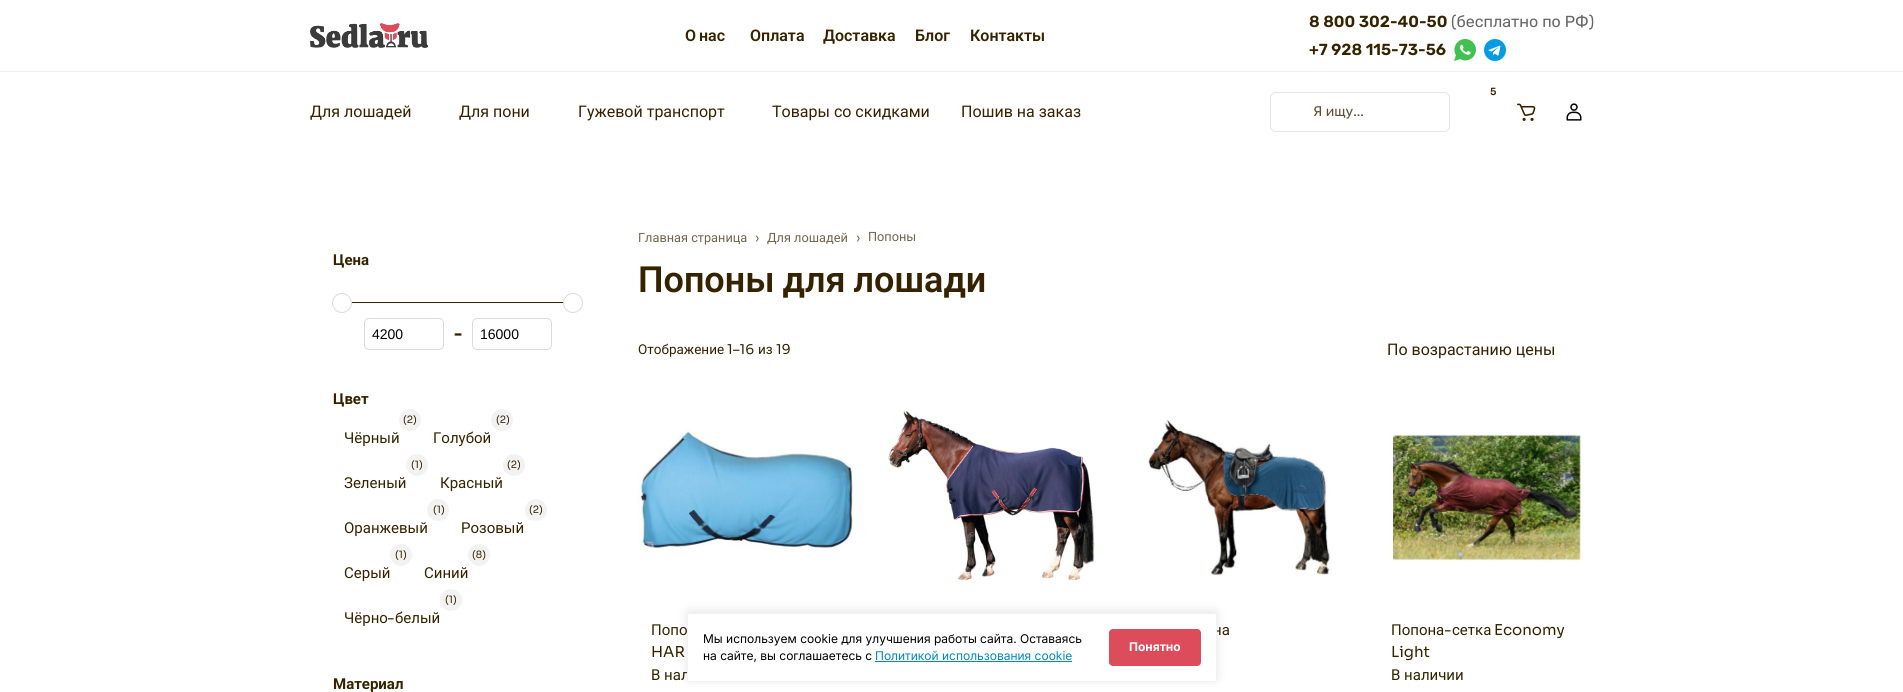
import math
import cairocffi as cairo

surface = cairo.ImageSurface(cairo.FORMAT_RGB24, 1903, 692)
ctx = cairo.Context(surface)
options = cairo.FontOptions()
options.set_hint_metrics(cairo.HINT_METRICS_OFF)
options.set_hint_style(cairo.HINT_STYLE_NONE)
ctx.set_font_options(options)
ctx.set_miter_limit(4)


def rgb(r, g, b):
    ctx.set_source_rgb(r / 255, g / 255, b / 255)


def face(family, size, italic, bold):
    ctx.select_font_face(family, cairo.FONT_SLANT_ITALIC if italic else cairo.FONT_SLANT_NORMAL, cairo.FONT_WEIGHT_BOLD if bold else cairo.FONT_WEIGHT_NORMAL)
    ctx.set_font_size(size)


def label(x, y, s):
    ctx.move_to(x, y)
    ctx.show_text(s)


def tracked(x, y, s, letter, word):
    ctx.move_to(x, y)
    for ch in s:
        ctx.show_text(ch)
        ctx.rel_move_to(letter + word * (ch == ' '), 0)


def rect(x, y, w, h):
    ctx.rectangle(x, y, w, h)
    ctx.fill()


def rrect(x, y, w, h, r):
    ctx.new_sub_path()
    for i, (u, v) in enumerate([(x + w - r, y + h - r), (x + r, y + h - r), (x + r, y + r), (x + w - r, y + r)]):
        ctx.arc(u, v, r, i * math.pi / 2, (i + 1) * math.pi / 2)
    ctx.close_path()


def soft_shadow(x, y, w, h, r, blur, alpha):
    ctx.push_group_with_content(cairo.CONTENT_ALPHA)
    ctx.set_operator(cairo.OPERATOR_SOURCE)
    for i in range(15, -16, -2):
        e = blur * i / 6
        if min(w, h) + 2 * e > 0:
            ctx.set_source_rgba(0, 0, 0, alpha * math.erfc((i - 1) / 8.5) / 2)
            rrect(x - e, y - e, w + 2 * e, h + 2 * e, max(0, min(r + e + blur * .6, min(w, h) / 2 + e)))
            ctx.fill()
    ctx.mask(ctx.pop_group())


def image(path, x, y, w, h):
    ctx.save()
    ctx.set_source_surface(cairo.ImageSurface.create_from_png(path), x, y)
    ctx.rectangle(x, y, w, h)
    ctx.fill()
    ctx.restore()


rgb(255, 255, 255)
ctx.paint()
rgb(238, 238, 238)
rect(0, 71, 1903, 1)
image('image0.png', 310, 23, 119, 25)
face('Roboto SemiBold', 16, 0, 0)
rgb(53, 35, 0)
tracked(685, 41, 'О нас', 0, -1)
label(750, 41, 'Оплата')
label(823, 41, 'Доставка')
label(915, 41, 'Блог')
label(970, 41, 'Контакты')
face('Rubik SemiBold', 16, 0, 0)
label(1309, 27, '8 800 302-40-50')
face('Rubik', 16, 0, 0)
rgb(101, 101, 101)
label(1451, 27, '(бесплатно по РФ)')
face('Rubik SemiBold', 16, 0, 0)
rgb(53, 35, 0)
label(1309, 55, '+7 928 115-73-56')
image('image1.png', 1454, 39, 22, 22)
image('image2.png', 1484, 39, 22, 22)
face('Roboto', 16, 0, 0)
label(310, 117, 'Для лошадей')
label(459, 117, 'Для пони')
label(578, 117, 'Гужевой транспорт')
label(772, 117, 'Товары со скидками')
label(961, 117, 'Пошив на заказ')
face('Sora SemiBold', 10, 0, 0)
label(1490, 95, '5')
rrect(1270.5, 92.5, 179, 39, 5.5)
rgb(230, 230, 230)
ctx.set_line_width(1)
ctx.stroke()
face('Rubik', 14, 0, 0)
rgb(93, 79, 51)
label(1313, 116, 'Я ищу...')
image('image3.png', 1517, 103, 19, 18)
image('image4.png', 1566, 103, 16, 18)
face('Roboto', 15, 0, 1)
rgb(53, 35, 0)
label(333, 265, 'Цена')
rect(343, 302, 221, 1)
rgb(255, 255, 255)
ctx.new_path()
ctx.arc(342, 303, 9.5, 0, 2 * math.pi)
ctx.fill_preserve()
rgb(219, 219, 219)
ctx.stroke()
rgb(255, 255, 255)
ctx.arc(573, 303, 9.5, 0, 2 * math.pi)
ctx.fill_preserve()
rgb(219, 219, 219)
ctx.stroke()
rrect(364.5, 318.5, 79, 31, 4.5)
ctx.stroke()
face('Liberation Sans', 14, 0, 0)
rgb(0, 0, 0)
label(372, 339, '4200')
face('Sora', 16, 0, 1)
rgb(53, 35, 0)
label(454, 339, '-')
rrect(472.5, 318.5, 79, 31, 4.5)
rgb(219, 219, 219)
ctx.stroke()
face('Liberation Sans', 14, 0, 0)
rgb(0, 0, 0)
label(480, 339, '16000')
face('Roboto', 15, 0, 1)
rgb(53, 35, 0)
label(333, 404, 'Цвет')
rgb(242, 242, 242)
ctx.new_path()
ctx.arc(410, 420, 11, 0, 2 * math.pi)
ctx.fill()
face('Sora', 10, 0, 0)
rgb(53, 35, 0)
label(403, 423, '(2)')
face('Roboto', 15, 0, 0)
label(344, 443, 'Чёрный')
rgb(242, 242, 242)
ctx.new_path()
ctx.arc(502, 420, 11, 0, 2 * math.pi)
ctx.fill()
face('Sora', 10, 0, 0)
rgb(53, 35, 0)
label(496, 423, '(2)')
face('Roboto', 15, 0, 0)
label(433, 443, 'Голубой')
rgb(242, 242, 242)
ctx.new_path()
ctx.arc(417, 465, 11, 0, 2 * math.pi)
ctx.fill()
face('Sora', 10, 0, 0)
rgb(53, 35, 0)
label(411, 468, '(1)')
face('Roboto', 15, 0, 0)
label(344, 488, 'Зеленый')
rgb(242, 242, 242)
ctx.new_path()
ctx.arc(514, 465, 11, 0, 2 * math.pi)
ctx.fill()
face('Sora', 10, 0, 0)
rgb(53, 35, 0)
label(507, 468, '(2)')
face('Roboto', 15, 0, 0)
label(440, 488, 'Красный')
rgb(242, 242, 242)
ctx.new_path()
ctx.arc(438, 510, 11, 0, 2 * math.pi)
ctx.fill()
face('Sora', 10, 0, 0)
rgb(53, 35, 0)
label(433, 513, '(1)')
face('Roboto', 15, 0, 0)
label(344, 533, 'Оранжевый')
rgb(242, 242, 242)
ctx.new_path()
ctx.arc(536, 510, 11, 0, 2 * math.pi)
ctx.fill()
face('Sora', 10, 0, 0)
rgb(53, 35, 0)
label(529, 513, '(2)')
face('Roboto', 15, 0, 0)
label(461, 533, 'Розовый')
rgb(242, 242, 242)
ctx.new_path()
ctx.arc(401, 555, 11, 0, 2 * math.pi)
ctx.fill()
face('Sora', 10, 0, 0)
rgb(53, 35, 0)
label(395, 558, '(1)')
face('Roboto', 15, 0, 0)
label(344, 578, 'Серый')
rgb(242, 242, 242)
ctx.new_path()
ctx.arc(479, 555, 11, 0, 2 * math.pi)
ctx.fill()
face('Sora', 10, 0, 0)
rgb(53, 35, 0)
label(472, 558, '(8)')
face('Roboto', 15, 0, 0)
label(424, 578, 'Синий')
rgb(242, 242, 242)
ctx.new_path()
ctx.arc(451, 600, 11, 0, 2 * math.pi)
ctx.fill()
face('Sora', 10, 0, 0)
rgb(53, 35, 0)
label(445, 603, '(1)')
face('Roboto', 15, 0, 0)
label(344, 623, 'Чёрно')
face('Sora', 15, 0, 0)
label(387, 623, '-')
face('Roboto', 15, 0, 0)
label(395, 623, 'белый')
face('Roboto', 15, 0, 1)
label(333, 689, 'Материал')
face('Roboto', 12.75, 0, 0)
rgb(114, 101, 77)
label(638, 242, 'Главная страница')
face('Sora', 13, 0, 0)
label(755, 242, '›')
face('Roboto', 12.75, 0, 0)
label(767, 242, 'Для лошадей')
face('Sora', 13, 0, 0)
label(856, 242, '›')
face('Roboto', 12.75, 0, 0)
label(868, 241, 'Попоны')
face('Roboto SemiBold', 36, 0, 0)
rgb(53, 35, 0)
tracked(638, 292, 'Попоны для лошади', 0, -1)
face('Roboto', 13.5, 0, 0)
label(638, 354, 'Отображение')
face('Sora', 13.5, 0, 0)
label(727, 354, '1–16')
face('Roboto', 13.5, 0, 0)
label(758, 354, 'из')
face('Sora', 13.5, 0, 0)
label(776, 354, '19')
face('Roboto', 16, 0, 0)
label(1387, 355, 'По возрастанию цены')
image('image5.png', 888, 411, 207, 170)
image('image6.png', 638, 426, 216, 124)
face('Roboto', 15, 0, 0)
label(651, 635, 'Попо')
face('Sora', 15, 0, 0)
label(651, 657, 'HAR')
face('Roboto', 15, 0, 0)
label(651, 680, 'В нал')
image('image7.png', 1146, 419, 185, 158)
label(1213, 635, 'на')
image('image8.png', 1393, 434, 188, 128)
label(1391, 635, 'Попона')
face('Sora', 15, 0, 0)
label(1444, 635, '-')
face('Roboto', 15, 0, 0)
label(1452, 635, 'сетка')
face('Sora', 15, 0, 0)
label(1494, 635, 'Economy')
label(1391, 657, 'Light')
face('Roboto', 15, 0, 0)
label(1391, 680, 'В наличии')
rgb(0, 0, 0)
soft_shadow(687, 611, 530, 69, 2, 5, 0.1)
rgb(255, 255, 255)
rrect(687.5, 613.5, 529, 68, 1.5)
ctx.fill_preserve()
rgb(242, 242, 242)
ctx.stroke()
face('Inter', 12, 0, 0)
rgb(0, 0, 0)
label(703, 643, 'Мы используем cookie для улучшения работы сайта. Оставаясь')
label(703, 660, 'на сайте, вы соглашаетесь с')
rgb(0, 135, 192)
label(875, 660, 'Политикой использования cookie')
rect(875, 661, 197, 1)
rgb(220, 76, 91)
rrect(1109, 629, 92, 37, 4)
ctx.fill()
face('Inter', 12, 0, 1)
rgb(255, 255, 255)
label(1129, 651, 'Понятно')
surface.write_to_png('render.png')
